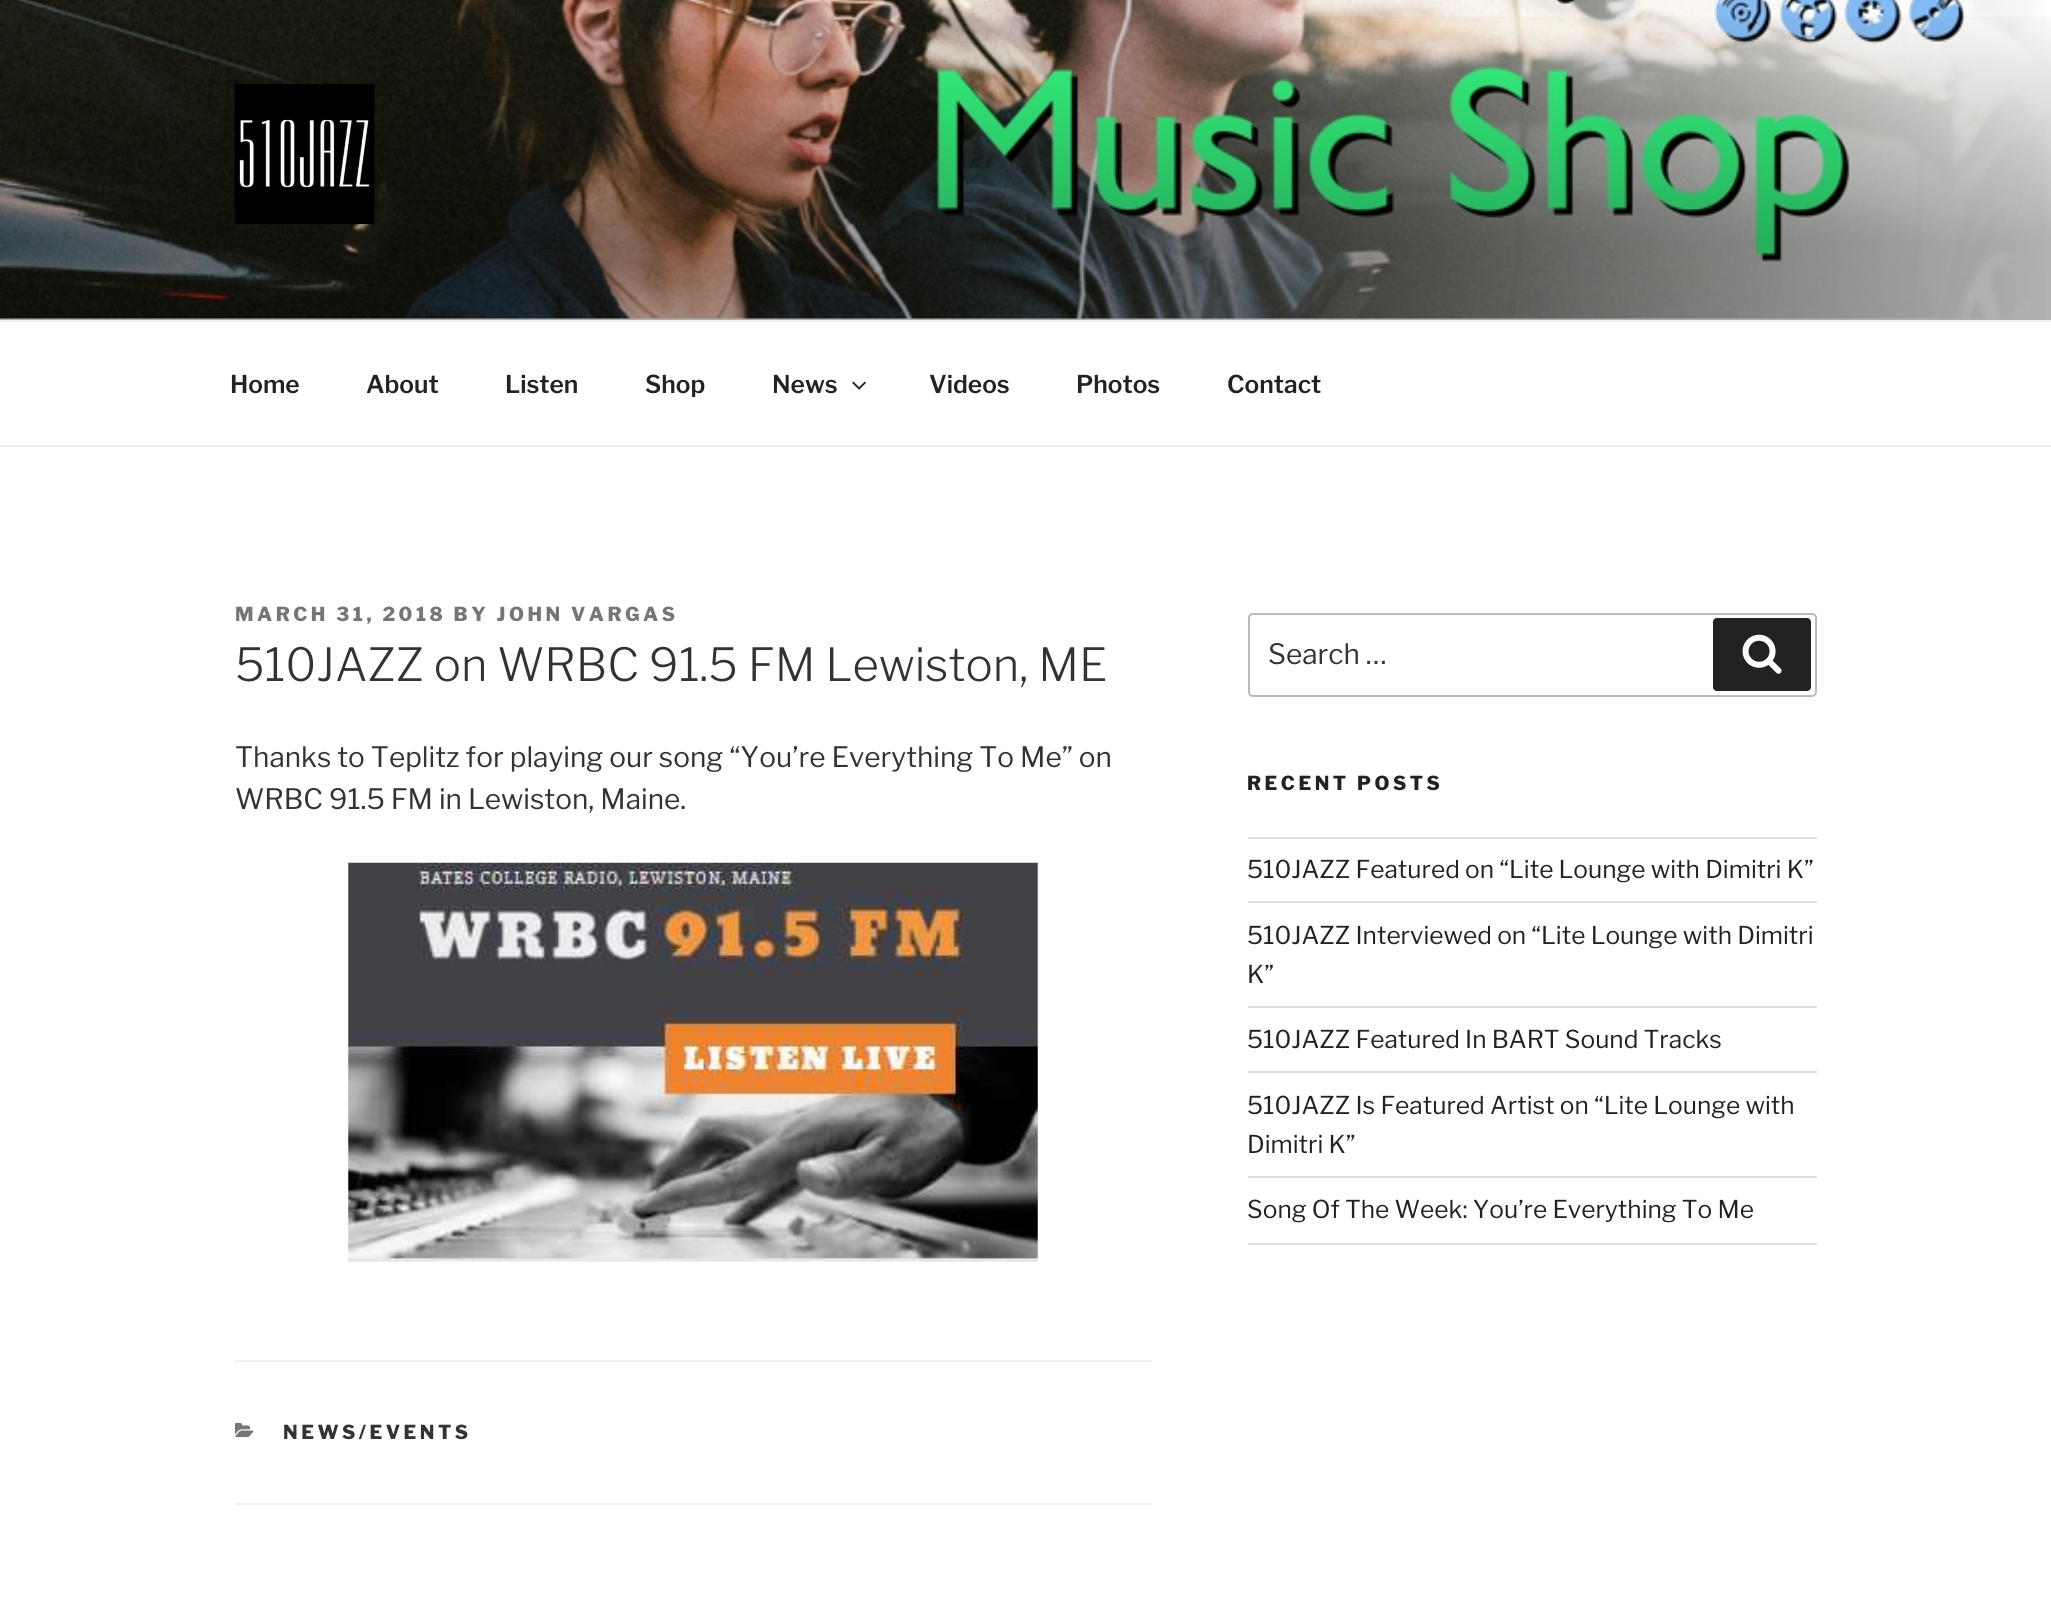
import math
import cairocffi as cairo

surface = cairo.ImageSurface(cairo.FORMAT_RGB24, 2051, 1616)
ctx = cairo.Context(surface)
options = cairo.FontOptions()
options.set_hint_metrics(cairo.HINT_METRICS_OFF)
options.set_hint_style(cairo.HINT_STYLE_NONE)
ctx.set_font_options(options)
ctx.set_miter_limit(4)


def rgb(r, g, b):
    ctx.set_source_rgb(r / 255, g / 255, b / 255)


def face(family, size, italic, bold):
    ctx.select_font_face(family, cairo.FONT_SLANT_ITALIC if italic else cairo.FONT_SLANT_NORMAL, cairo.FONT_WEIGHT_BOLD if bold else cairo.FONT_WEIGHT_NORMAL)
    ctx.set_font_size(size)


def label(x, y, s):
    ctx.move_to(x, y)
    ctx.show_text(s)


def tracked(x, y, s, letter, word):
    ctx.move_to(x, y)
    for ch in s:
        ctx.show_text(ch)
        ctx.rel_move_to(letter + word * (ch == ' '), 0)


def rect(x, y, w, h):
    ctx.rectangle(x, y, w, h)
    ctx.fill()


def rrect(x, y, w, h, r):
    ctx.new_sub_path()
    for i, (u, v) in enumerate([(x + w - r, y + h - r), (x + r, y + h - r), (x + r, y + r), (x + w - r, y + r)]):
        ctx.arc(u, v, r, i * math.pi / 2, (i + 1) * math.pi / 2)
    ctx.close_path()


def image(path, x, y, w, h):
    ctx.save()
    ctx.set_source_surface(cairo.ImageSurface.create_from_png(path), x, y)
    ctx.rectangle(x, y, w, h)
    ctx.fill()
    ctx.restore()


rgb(255, 255, 255)
ctx.paint()
rgb(250, 250, 250)
rect(0, 318, 2051, 2)
image('image0.png', 0, 0, 2051, 319)
gradient = cairo.LinearGradient(1026, 0, 1026, 320)
gradient.add_color_stop_rgba(0, 0, 0, 0, 0)
gradient.add_color_stop_rgba(0.75, 0, 0, 0, 0.3)
gradient.add_color_stop_rgba(1, 0, 0, 0, 0.3)
ctx.set_source(gradient)
rect(0, 17, 2051, 303)
image('image1.png', 234, 84, 141, 140)
rgb(238, 238, 238)
rect(0, 320, 2051, 2)
rect(0, 445, 2051, 2)
face('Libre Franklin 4 Thin', 24.5, 0, 0)
rgb(34, 34, 34)
label(230, 393, 'Home')
label(366, 393, 'About')
label(505, 393, 'Listen')
label(645, 393, 'Shop')
label(772, 393, 'News')
image('image2.png', 852, 381, 14, 9)
label(929, 393, 'Videos')
label(1076, 393, 'Photos')
label(1227, 393, 'Contact')
face('Libre Franklin Thin', 19.25, 0, 0)
rgb(118, 118, 118)
tracked(235, 621, 'MARCH 31, 2018 BY JOHN VARGAS', 3.5, 0)
face('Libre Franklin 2 Thin', 45.5, 0, 0)
rgb(51, 51, 51)
label(235, 681, '510JAZZ on WRBC 91.5 FM Lewiston, ME')
face('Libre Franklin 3 Thin', 28, 0, 0)
label(235, 767, 'Thanks to Teplitz for playing our song “You’re Everything To Me” on')
label(235, 809, 'WRBC 91.5 FM in Lewiston, Maine.')
image('image3.png', 348, 862, 690, 400)
rgb(238, 238, 238)
rect(235, 1360, 917, 2)
rect(235, 1503, 917, 2)
image('image4.png', 235, 1422, 19, 16)
face('Libre Franklin Thin', 19.25, 0, 0)
rgb(51, 51, 51)
tracked(283, 1439, 'NEWS/EVENTS', 3.5, 0)
rrect(1249, 614, 567, 82, 4)
rgb(187, 187, 187)
ctx.stroke()
face('Libre Franklin 3 Thin', 28, 0, 0)
rgb(51, 51, 51)
label(1268, 664, 'Search …')
rgb(34, 34, 34)
rrect(1713, 618, 98, 73, 4)
ctx.fill()
image('image5.png', 1742, 634, 40, 40)
face('Libre Franklin Thin', 19.25, 0, 0)
tracked(1247, 790, 'RECENT POSTS', 3.5, 0)
rgb(221, 221, 221)
rect(1248, 837, 569, 2)
rect(1248, 901, 569, 2)
face('Libre Franklin 3 Thin', 24.5, 0, 0)
rgb(34, 34, 34)
label(1247, 878, '510JAZZ Featured on “Lite Lounge with Dimitri K”')
rgb(221, 221, 221)
rect(1248, 1006, 569, 2)
rgb(34, 34, 34)
label(1247, 944, '510JAZZ Interviewed on “Lite Lounge with Dimitri')
label(1247, 983, 'K”')
rgb(221, 221, 221)
rect(1248, 1071, 569, 2)
rgb(34, 34, 34)
label(1247, 1048, '510JAZZ Featured In BART Sound Tracks')
rgb(221, 221, 221)
rect(1248, 1176, 569, 2)
rgb(34, 34, 34)
label(1247, 1114, '510JAZZ Is Featured Artist on “Lite Lounge with')
label(1247, 1153, 'Dimitri K”')
rgb(221, 221, 221)
rect(1248, 1243, 569, 2)
rgb(34, 34, 34)
label(1247, 1218, 'Song Of The Week: You’re Everything To Me')
surface.write_to_png('render.png')
